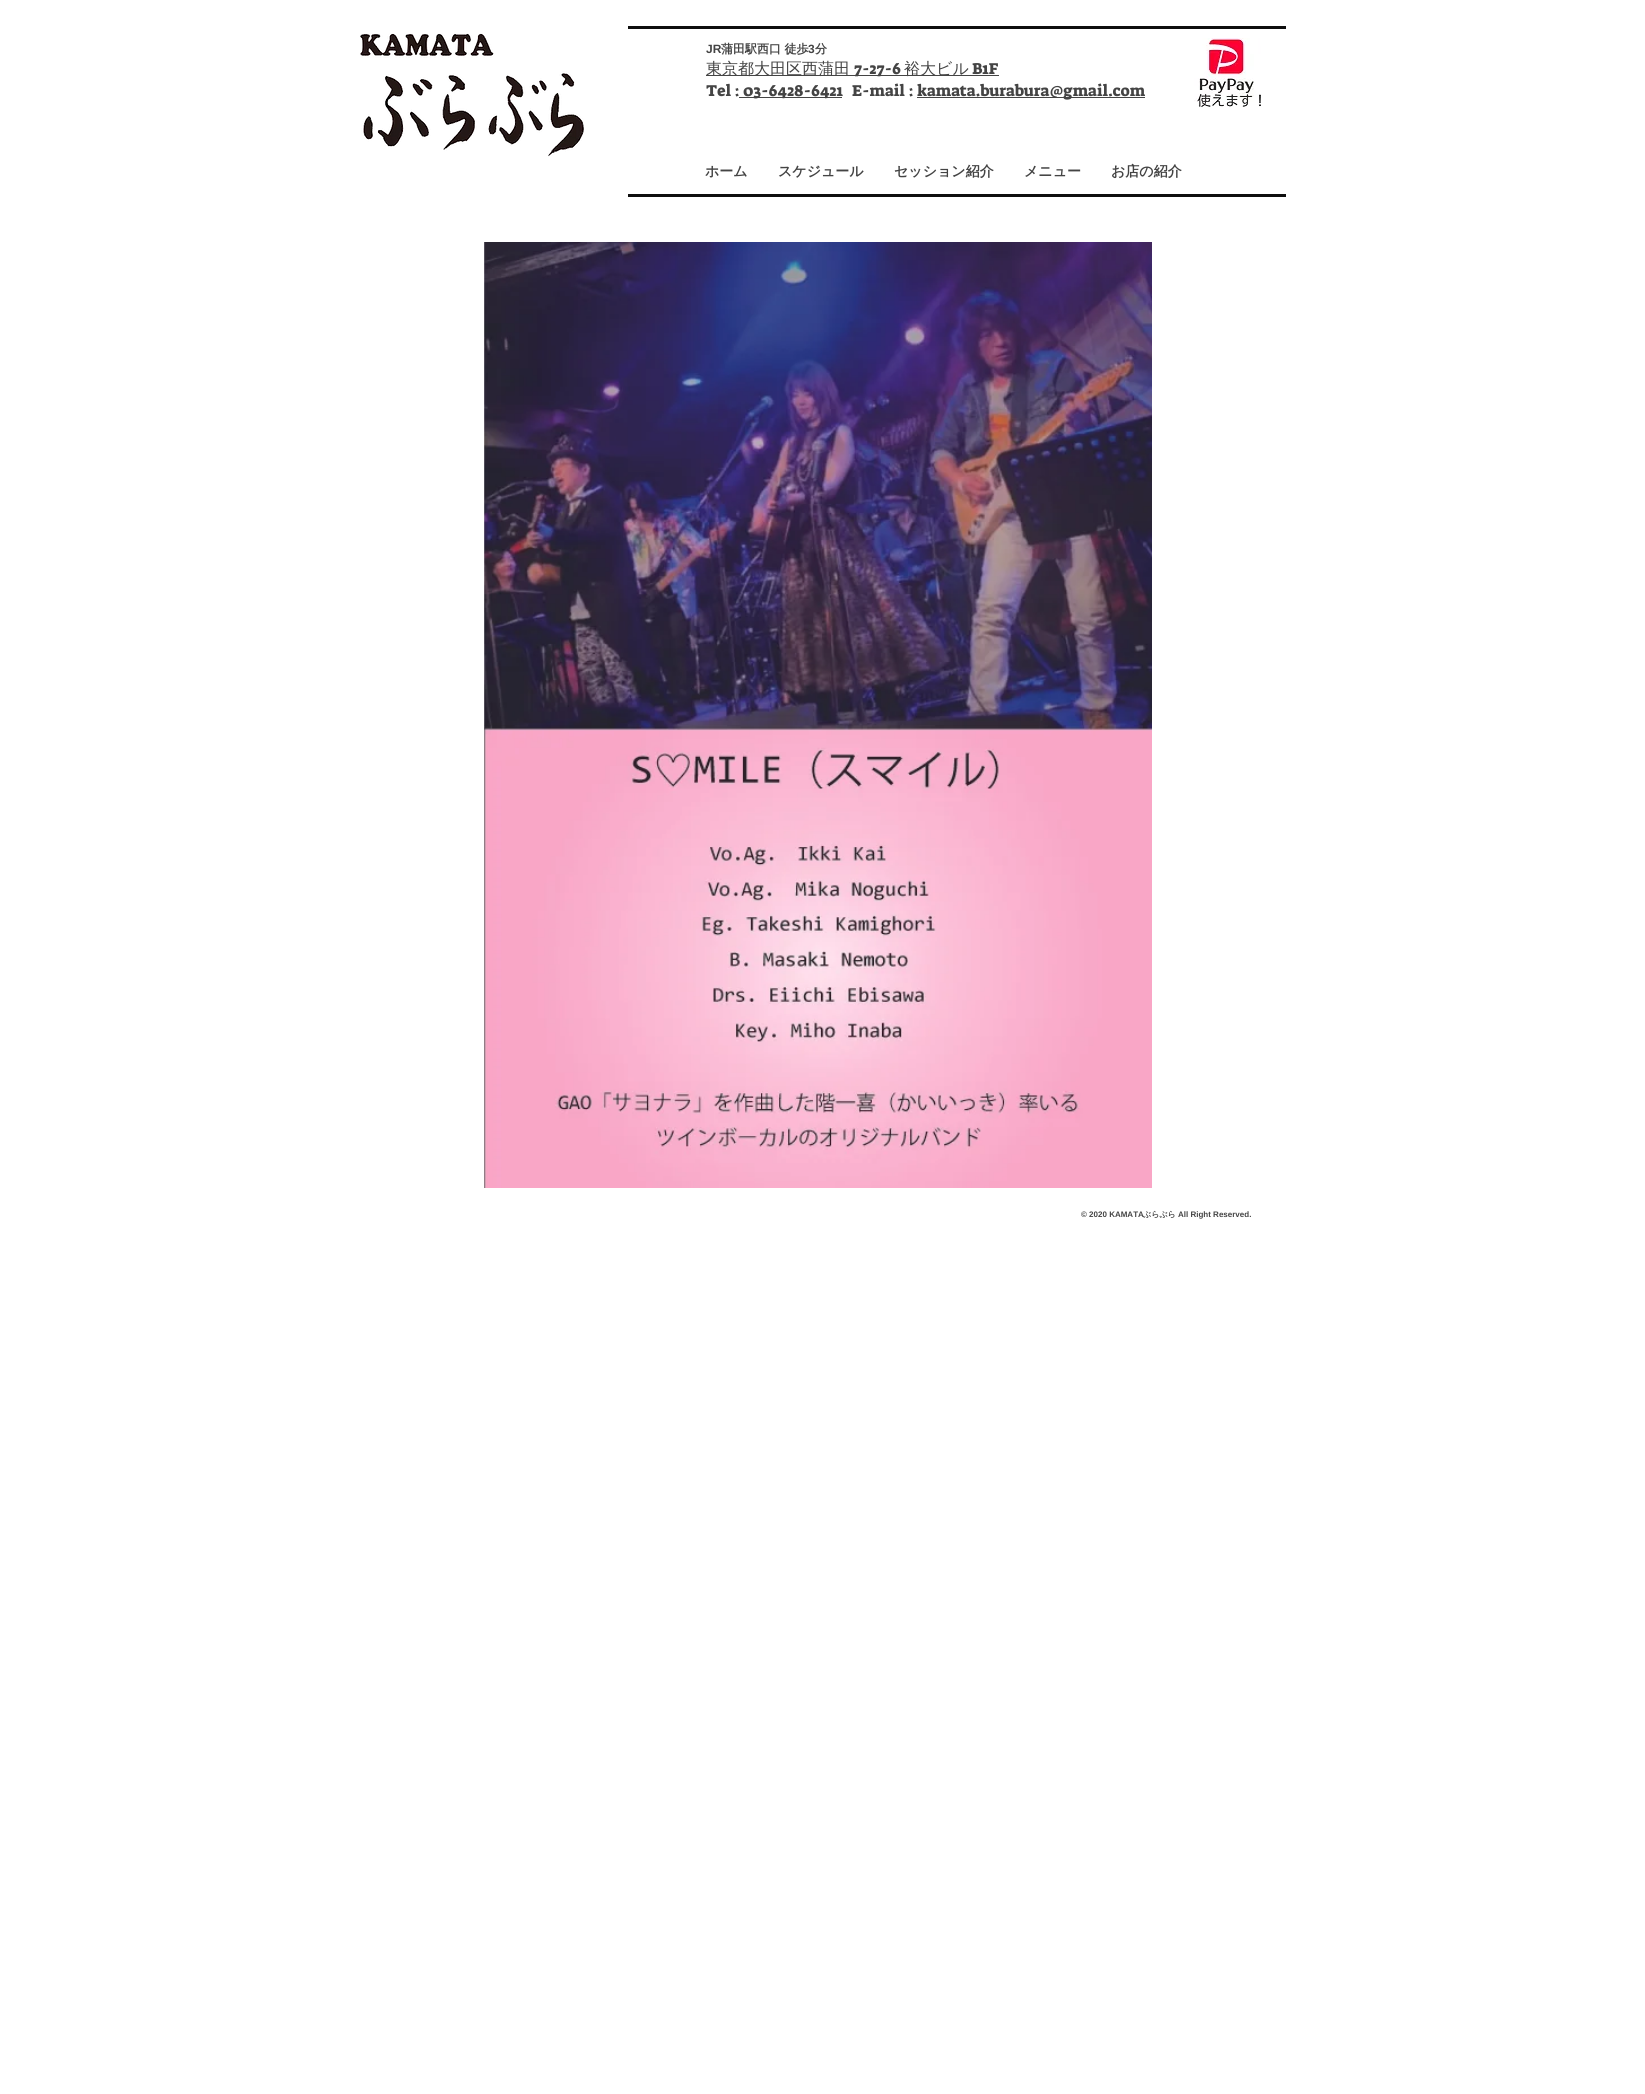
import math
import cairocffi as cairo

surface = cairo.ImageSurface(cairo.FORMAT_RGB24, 1645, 2094)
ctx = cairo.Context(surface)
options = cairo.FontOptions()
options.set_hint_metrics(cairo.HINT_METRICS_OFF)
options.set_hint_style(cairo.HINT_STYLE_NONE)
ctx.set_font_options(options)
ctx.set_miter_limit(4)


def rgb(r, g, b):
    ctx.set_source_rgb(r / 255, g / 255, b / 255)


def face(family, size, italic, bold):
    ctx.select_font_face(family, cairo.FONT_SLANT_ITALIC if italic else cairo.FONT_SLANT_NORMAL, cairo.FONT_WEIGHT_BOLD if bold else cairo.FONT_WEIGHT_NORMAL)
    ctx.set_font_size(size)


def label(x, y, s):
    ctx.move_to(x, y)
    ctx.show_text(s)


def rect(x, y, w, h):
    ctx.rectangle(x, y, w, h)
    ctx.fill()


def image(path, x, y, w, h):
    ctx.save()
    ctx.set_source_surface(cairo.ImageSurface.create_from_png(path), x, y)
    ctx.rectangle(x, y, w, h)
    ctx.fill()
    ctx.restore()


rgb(255, 255, 255)
ctx.paint()
rgb(15, 15, 15)
rect(628, 26, 658, 3)
image('image0.png', 360, 33, 224, 124)
face('Liberation Sans', 12, 0, 1)
rgb(68, 68, 68)
label(706, 53, 'JR')
face('WenQuanYi Zen Hei', 12, 0, 1)
label(721, 53, '蒲田駅西口 徒歩')
face('Liberation Sans', 12, 0, 1)
label(808, 53, '3')
face('WenQuanYi Zen Hei', 12, 0, 1)
label(815, 53, '分')
rect(706, 75, 293, 1)
face('WenQuanYi Zen Hei Medium', 16, 0, 0)
label(706, 74, '東京都大田区西蒲田')
face('Suez One', 16, 0, 0)
label(854, 74, '7-27-6')
face('WenQuanYi Zen Hei Medium', 16, 0, 0)
label(904, 74, '裕大ビル')
face('Suez One', 16, 0, 0)
label(972, 74, 'B1F')
label(706, 96, 'Tel :')
rect(739, 97, 103, 1)
label(743, 96, '03-6428-6421')
label(852, 96, 'E-mail :')
rect(917, 97, 228, 1)
label(917, 96, 'kamata.burabura@gmail.com')
image('image1.png', 1194, 38, 67, 69)
face('WenQuanYi Zen Hei', 14, 0, 1)
label(705, 176, 'ホーム')
label(778, 176, 'スケジュール')
label(894, 176, 'セッション紹介')
label(1024, 176, 'メニュー')
label(1111, 176, 'お店の紹介')
rgb(15, 15, 15)
rect(628, 194, 658, 3)
image('image2.png', 484, 242, 668, 946)
face('Liberation Sans', 8, 0, 1)
rgb(68, 68, 68)
label(1081, 1217, '© 2020 KAMATA')
face('WenQuanYi Zen Hei', 8, 0, 1)
label(1143, 1217, 'ぶらぶら')
face('Liberation Sans', 8, 0, 1)
label(1178, 1217, 'All Right Reserved.')
surface.write_to_png('render.png')
